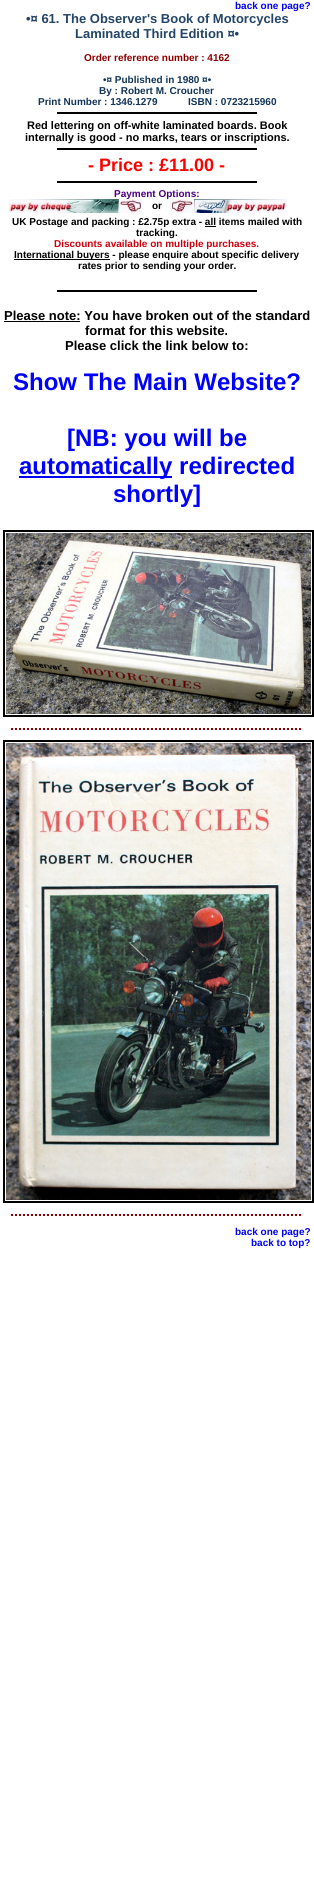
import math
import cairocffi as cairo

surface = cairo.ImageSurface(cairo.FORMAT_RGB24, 314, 1882)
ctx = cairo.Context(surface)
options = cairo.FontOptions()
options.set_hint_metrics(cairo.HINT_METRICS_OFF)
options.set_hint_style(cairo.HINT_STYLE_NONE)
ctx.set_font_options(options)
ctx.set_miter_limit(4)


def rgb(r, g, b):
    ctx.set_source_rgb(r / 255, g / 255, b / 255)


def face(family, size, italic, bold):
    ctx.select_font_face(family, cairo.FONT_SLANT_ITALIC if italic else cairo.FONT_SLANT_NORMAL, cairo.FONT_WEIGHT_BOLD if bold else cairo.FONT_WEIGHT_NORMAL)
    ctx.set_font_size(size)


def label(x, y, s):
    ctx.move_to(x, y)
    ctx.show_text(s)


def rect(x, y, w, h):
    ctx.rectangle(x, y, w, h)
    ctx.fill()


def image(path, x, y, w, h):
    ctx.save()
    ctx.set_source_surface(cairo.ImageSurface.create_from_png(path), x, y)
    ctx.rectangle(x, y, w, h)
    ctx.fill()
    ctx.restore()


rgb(255, 255, 255)
ctx.paint()
face('Liberation Sans', 10, 0, 1)
rgb(0, 0, 255)
label(235, 9, 'back one page?')
face('Liberation Sans', 13, 0, 1)
rgb(35, 69, 103)
label(26, 23, '•¤ 61. The Observer\'s Book of Motorcycles')
label(75, 38, 'Laminated Third Edition ¤•')
face('Liberation Sans', 10, 0, 1)
rgb(139, 0, 0)
label(84, 61, 'Order reference number : 4162')
rgb(18, 52, 86)
label(103, 83, '•¤ Published in 1980 ¤•')
label(99, 94, 'By : Robert M. Croucher')
label(38, 105, 'Print Number : 1346.1279           ISBN : 0723215960')
rgb(0, 0, 0)
rect(57, 112, 200, 2)
face('Liberation Sans', 11, 0, 1)
label(27, 129, 'Red lettering on off-white laminated boards. Book')
label(25, 141, 'internally is good - no marks, tears or inscriptions.')
rect(57, 148, 200, 2)
face('Liberation Sans', 18, 0, 1)
rgb(255, 0, 0)
label(88, 171, '- Price : £11.00 -')
rgb(0, 0, 0)
rect(57, 181, 200, 2)
face('Liberation Sans', 10, 0, 1)
rgb(75, 0, 130)
label(114, 197, 'Payment Options:')
image('image0.png', 9, 199, 133, 14)
rgb(0, 0, 0)
label(152, 209, 'or')
image('image1.png', 170, 199, 117, 14)
label(12, 225, 'UK Postage and packing : £2.75p extra - all items mailed with')
rect(205, 226, 11, 1)
label(136, 236, 'tracking.')
rgb(206, 0, 14)
label(54, 247, 'Discounts available on multiple purchases.')
rgb(0, 0, 0)
rect(14, 259, 96, 1)
label(14, 258, 'International buyers - please enquire about specific delivery')
label(78, 269, 'rates prior to sending your order.')
rect(57, 290, 200, 2)
face('Liberation Sans', 13, 0, 1)
label(4, 320, 'Please note: You have broken out of the standard')
rect(4, 321, 76, 1)
label(85, 335, 'format for this website.')
label(65, 350, 'Please click the link below to:')
face('Liberation Sans', 24, 0, 1)
rgb(0, 0, 255)
label(13, 390, 'Show The Main Website?')
label(67, 446, '[NB: you will be')
rect(19, 476, 153, 2)
label(19, 474, 'automatically redirected')
label(113, 502, 'shortly]')
ctx.rectangle(4, 531, 309, 185)
rgb(0, 0, 0)
ctx.stroke()
image('image2.png', 6, 533, 305, 181)
ctx.new_path()
ctx.move_to(11, 729)
ctx.line_to(303, 729)
rgb(139, 0, 0)
ctx.set_dash([2, 2])
ctx.stroke()
ctx.rectangle(4, 741, 309, 461)
rgb(0, 0, 0)
ctx.set_dash([])
ctx.stroke()
image('image3.png', 6, 743, 305, 457)
ctx.new_path()
ctx.move_to(11, 1215)
ctx.line_to(303, 1215)
rgb(139, 0, 0)
ctx.set_dash([2, 2])
ctx.stroke()
face('Liberation Sans', 10, 0, 1)
rgb(0, 0, 255)
label(235, 1235, 'back one page?')
label(251, 1246, 'back to top?')
surface.write_to_png('render.png')
